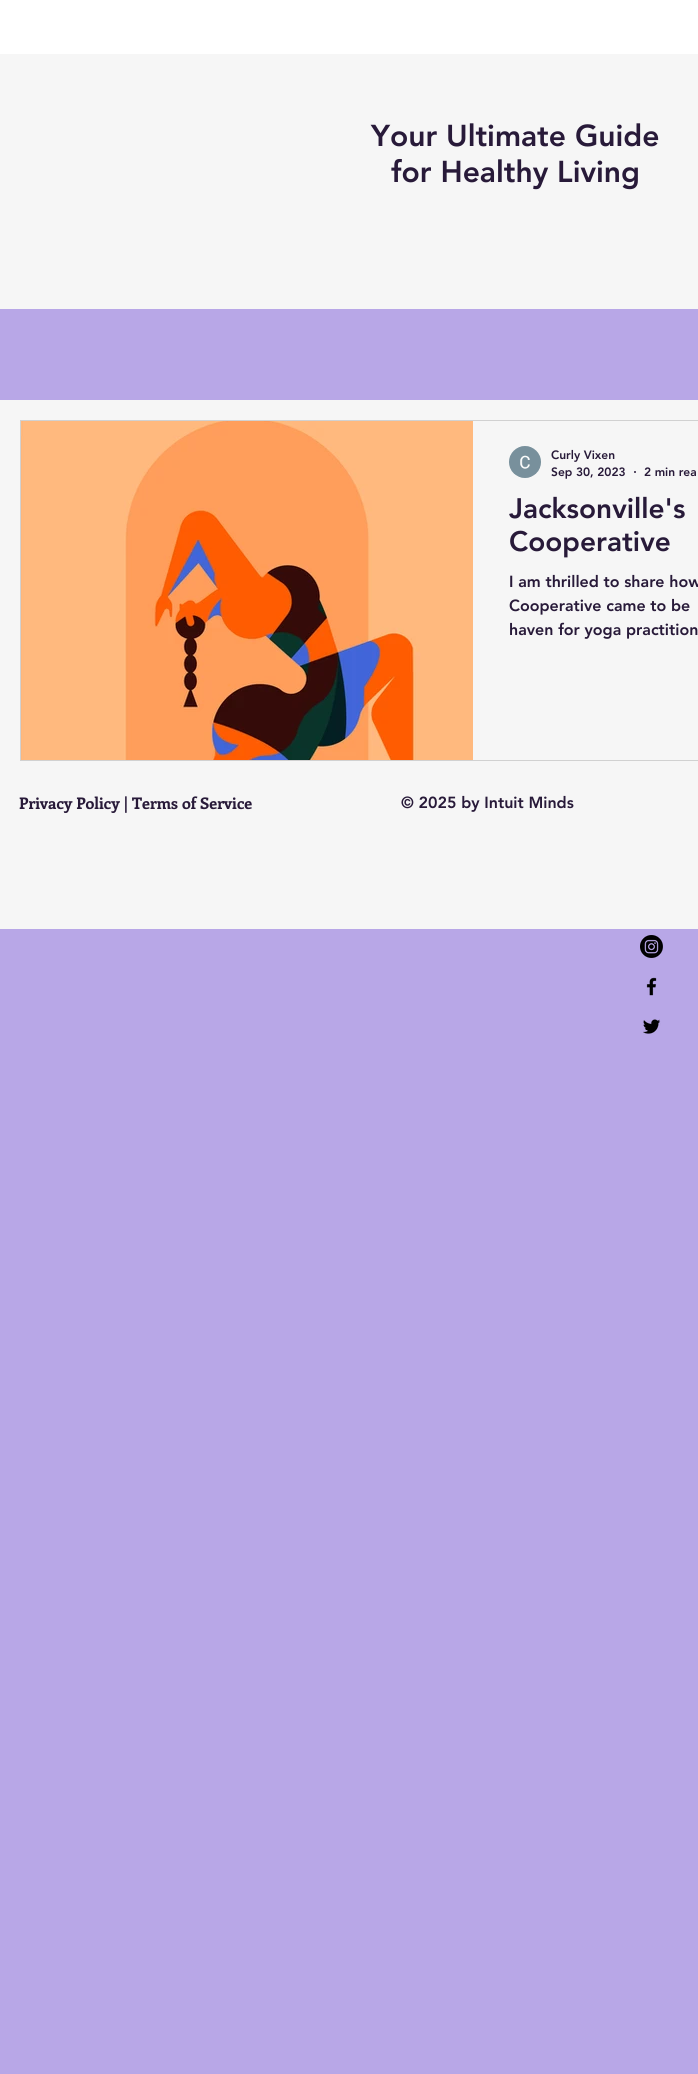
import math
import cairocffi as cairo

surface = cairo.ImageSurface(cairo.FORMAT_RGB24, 698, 2074)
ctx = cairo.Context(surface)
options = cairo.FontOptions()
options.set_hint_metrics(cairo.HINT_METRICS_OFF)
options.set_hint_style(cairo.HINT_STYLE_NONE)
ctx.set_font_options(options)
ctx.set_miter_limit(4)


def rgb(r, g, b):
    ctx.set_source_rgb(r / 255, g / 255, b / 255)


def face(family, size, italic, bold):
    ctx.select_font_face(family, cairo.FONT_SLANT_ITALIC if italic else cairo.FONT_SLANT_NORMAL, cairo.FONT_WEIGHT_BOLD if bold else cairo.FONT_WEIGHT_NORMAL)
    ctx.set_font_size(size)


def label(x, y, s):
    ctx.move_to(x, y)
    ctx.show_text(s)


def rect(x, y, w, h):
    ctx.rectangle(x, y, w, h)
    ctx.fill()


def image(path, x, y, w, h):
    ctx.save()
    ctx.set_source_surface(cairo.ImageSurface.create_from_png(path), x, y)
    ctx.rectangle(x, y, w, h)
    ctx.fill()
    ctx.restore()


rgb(184, 167, 231)
ctx.paint()
rgb(255, 255, 255)
rect(0, 0, 698, 54)
rgb(246, 246, 246)
rect(0, 54, 698, 255)
face('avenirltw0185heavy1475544 Black', 30, 0, 0)
rgb(40, 26, 57)
label(371, 146, 'Your Ultimate Guide')
label(391, 182, 'for Healthy Living')
rgb(246, 246, 246)
rect(0, 400, 698, 529)
ctx.rectangle(20.5, 420.5, 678, 340)
rgb(209, 209, 209)
ctx.set_line_width(1)
ctx.stroke()
image('image0.png', 21, 421, 452, 339)
image('image1.png', 509, 446, 32, 32)
face('avenirltw0185heavy1475544 Black', 12, 0, 0)
rgb(40, 26, 57)
label(551, 459, 'Curly Vixen')
label(551, 476, 'Sep 30, 2023')
ctx.new_path()
ctx.arc(635, 472, 1, 0, 2 * math.pi)
ctx.fill()
label(644, 476, '2 min rea')
face('avenirltw0185heavy1475544 Black', 28, 0, 0)
label(509, 518, 'Jacksonville\'s')
label(509, 551, 'Cooperative')
face('avenirltw0185heavy1475544 Black', 16, 0, 0)
label(509, 587, 'I am thrilled to share how')
label(509, 611, 'Cooperative came to be')
label(509, 635, 'haven for yoga practition')
face('Enriqueta', 16, 0, 1)
label(19, 809, 'Privacy Policy | Terms of Service')
face('avenirltw0185heavy1475544 Black', 16, 0, 0)
label(401, 808, '© 2025 by Intuit Minds')
image('image2.png', 640, 935, 23, 23)
image('image3.png', 646, 977, 11, 19)
image('image4.png', 643, 1019, 18, 15)
surface.write_to_png('render.png')
